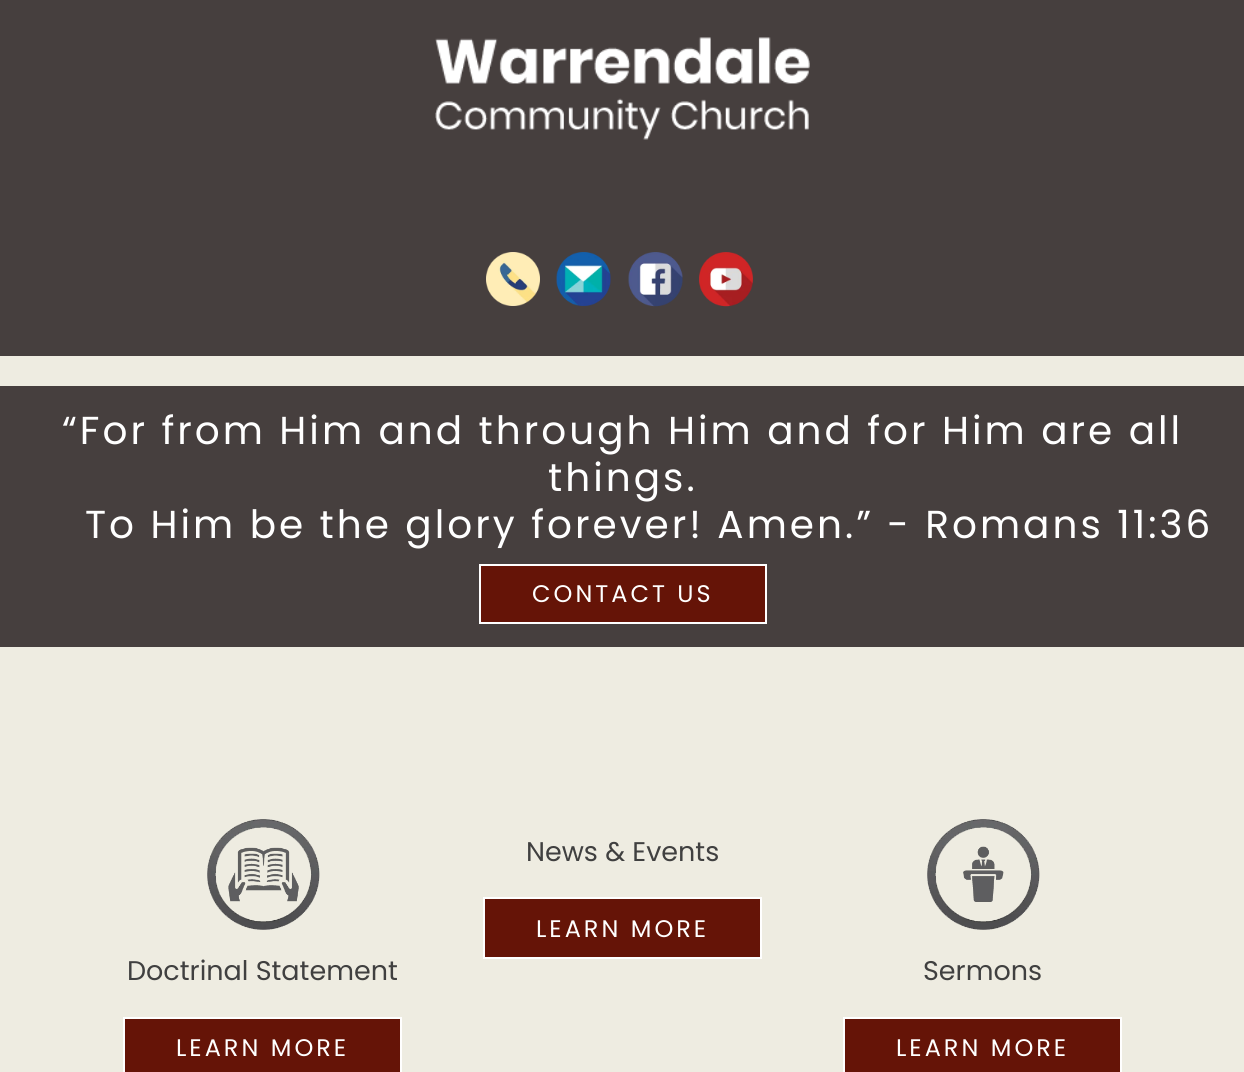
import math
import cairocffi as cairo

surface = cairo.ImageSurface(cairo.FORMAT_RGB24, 1244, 1072)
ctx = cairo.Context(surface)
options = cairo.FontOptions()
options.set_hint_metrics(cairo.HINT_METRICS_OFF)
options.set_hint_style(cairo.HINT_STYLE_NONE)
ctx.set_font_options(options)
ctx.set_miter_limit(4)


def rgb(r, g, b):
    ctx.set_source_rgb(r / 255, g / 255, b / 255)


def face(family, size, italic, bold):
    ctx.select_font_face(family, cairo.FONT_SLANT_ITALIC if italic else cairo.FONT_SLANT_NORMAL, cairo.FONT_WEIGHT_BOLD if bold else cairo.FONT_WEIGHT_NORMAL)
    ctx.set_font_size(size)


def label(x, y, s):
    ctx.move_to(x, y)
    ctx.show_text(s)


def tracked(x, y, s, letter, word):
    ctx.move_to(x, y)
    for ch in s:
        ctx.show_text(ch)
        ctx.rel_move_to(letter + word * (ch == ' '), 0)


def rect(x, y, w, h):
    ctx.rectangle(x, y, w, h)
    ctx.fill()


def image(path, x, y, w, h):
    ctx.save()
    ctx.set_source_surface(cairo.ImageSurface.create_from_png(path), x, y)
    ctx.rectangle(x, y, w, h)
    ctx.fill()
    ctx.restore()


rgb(238, 236, 225)
ctx.paint()
rgb(70, 63, 62)
rect(0, 0, 1244, 356)
image('image0.png', 435, 37, 375, 103)
image('image1.png', 486, 252, 54, 54)
image('image2.png', 556, 252, 55, 54)
image('image3.png', 628, 252, 55, 55)
image('image4.png', 699, 252, 54, 55)
rect(0, 386, 1244, 261)
face('Poppins', 39, 0, 0)
rgb(255, 255, 255)
tracked(62, 444, '“For from Him and through Him and for Him are all', 3, 0)
tracked(548, 491, 'things.', 3, 0)
tracked(85, 538, 'To Him be the glory forever! Amen.” - Romans 11:36', 3, 0)
rgb(101, 20, 7)
ctx.rectangle(480, 565, 286, 58)
ctx.fill_preserve()
rgb(255, 255, 255)
ctx.stroke()
face('Poppins', 24, 0, 0)
tracked(532, 602, 'CONTACT US', 3, 0)
face('Poppins', 27, 0, 0)
rgb(64, 64, 64)
label(526, 861, 'News & Events')
rgb(101, 20, 7)
ctx.rectangle(484, 898, 277, 60)
ctx.fill_preserve()
rgb(255, 255, 255)
ctx.stroke()
face('Poppins', 24, 0, 0)
tracked(536, 937, 'LEARN MORE', 3, 0)
image('image5.png', 207, 819, 113, 111)
face('Poppins', 27, 0, 0)
rgb(64, 64, 64)
label(127, 980, 'Doctrinal Statement')
rgb(101, 20, 7)
ctx.rectangle(124, 1018, 277, 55)
ctx.fill_preserve()
rgb(255, 255, 255)
ctx.stroke()
face('Poppins', 24, 0, 0)
tracked(176, 1056, 'LEARN MORE', 3, 0)
image('image6.png', 927, 819, 113, 111)
face('Poppins', 27, 0, 0)
rgb(64, 64, 64)
label(923, 980, 'Sermons')
rgb(101, 20, 7)
ctx.rectangle(844, 1018, 277, 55)
ctx.fill_preserve()
rgb(255, 255, 255)
ctx.stroke()
face('Poppins', 24, 0, 0)
tracked(896, 1056, 'LEARN MORE', 3, 0)
surface.write_to_png('render.png')
